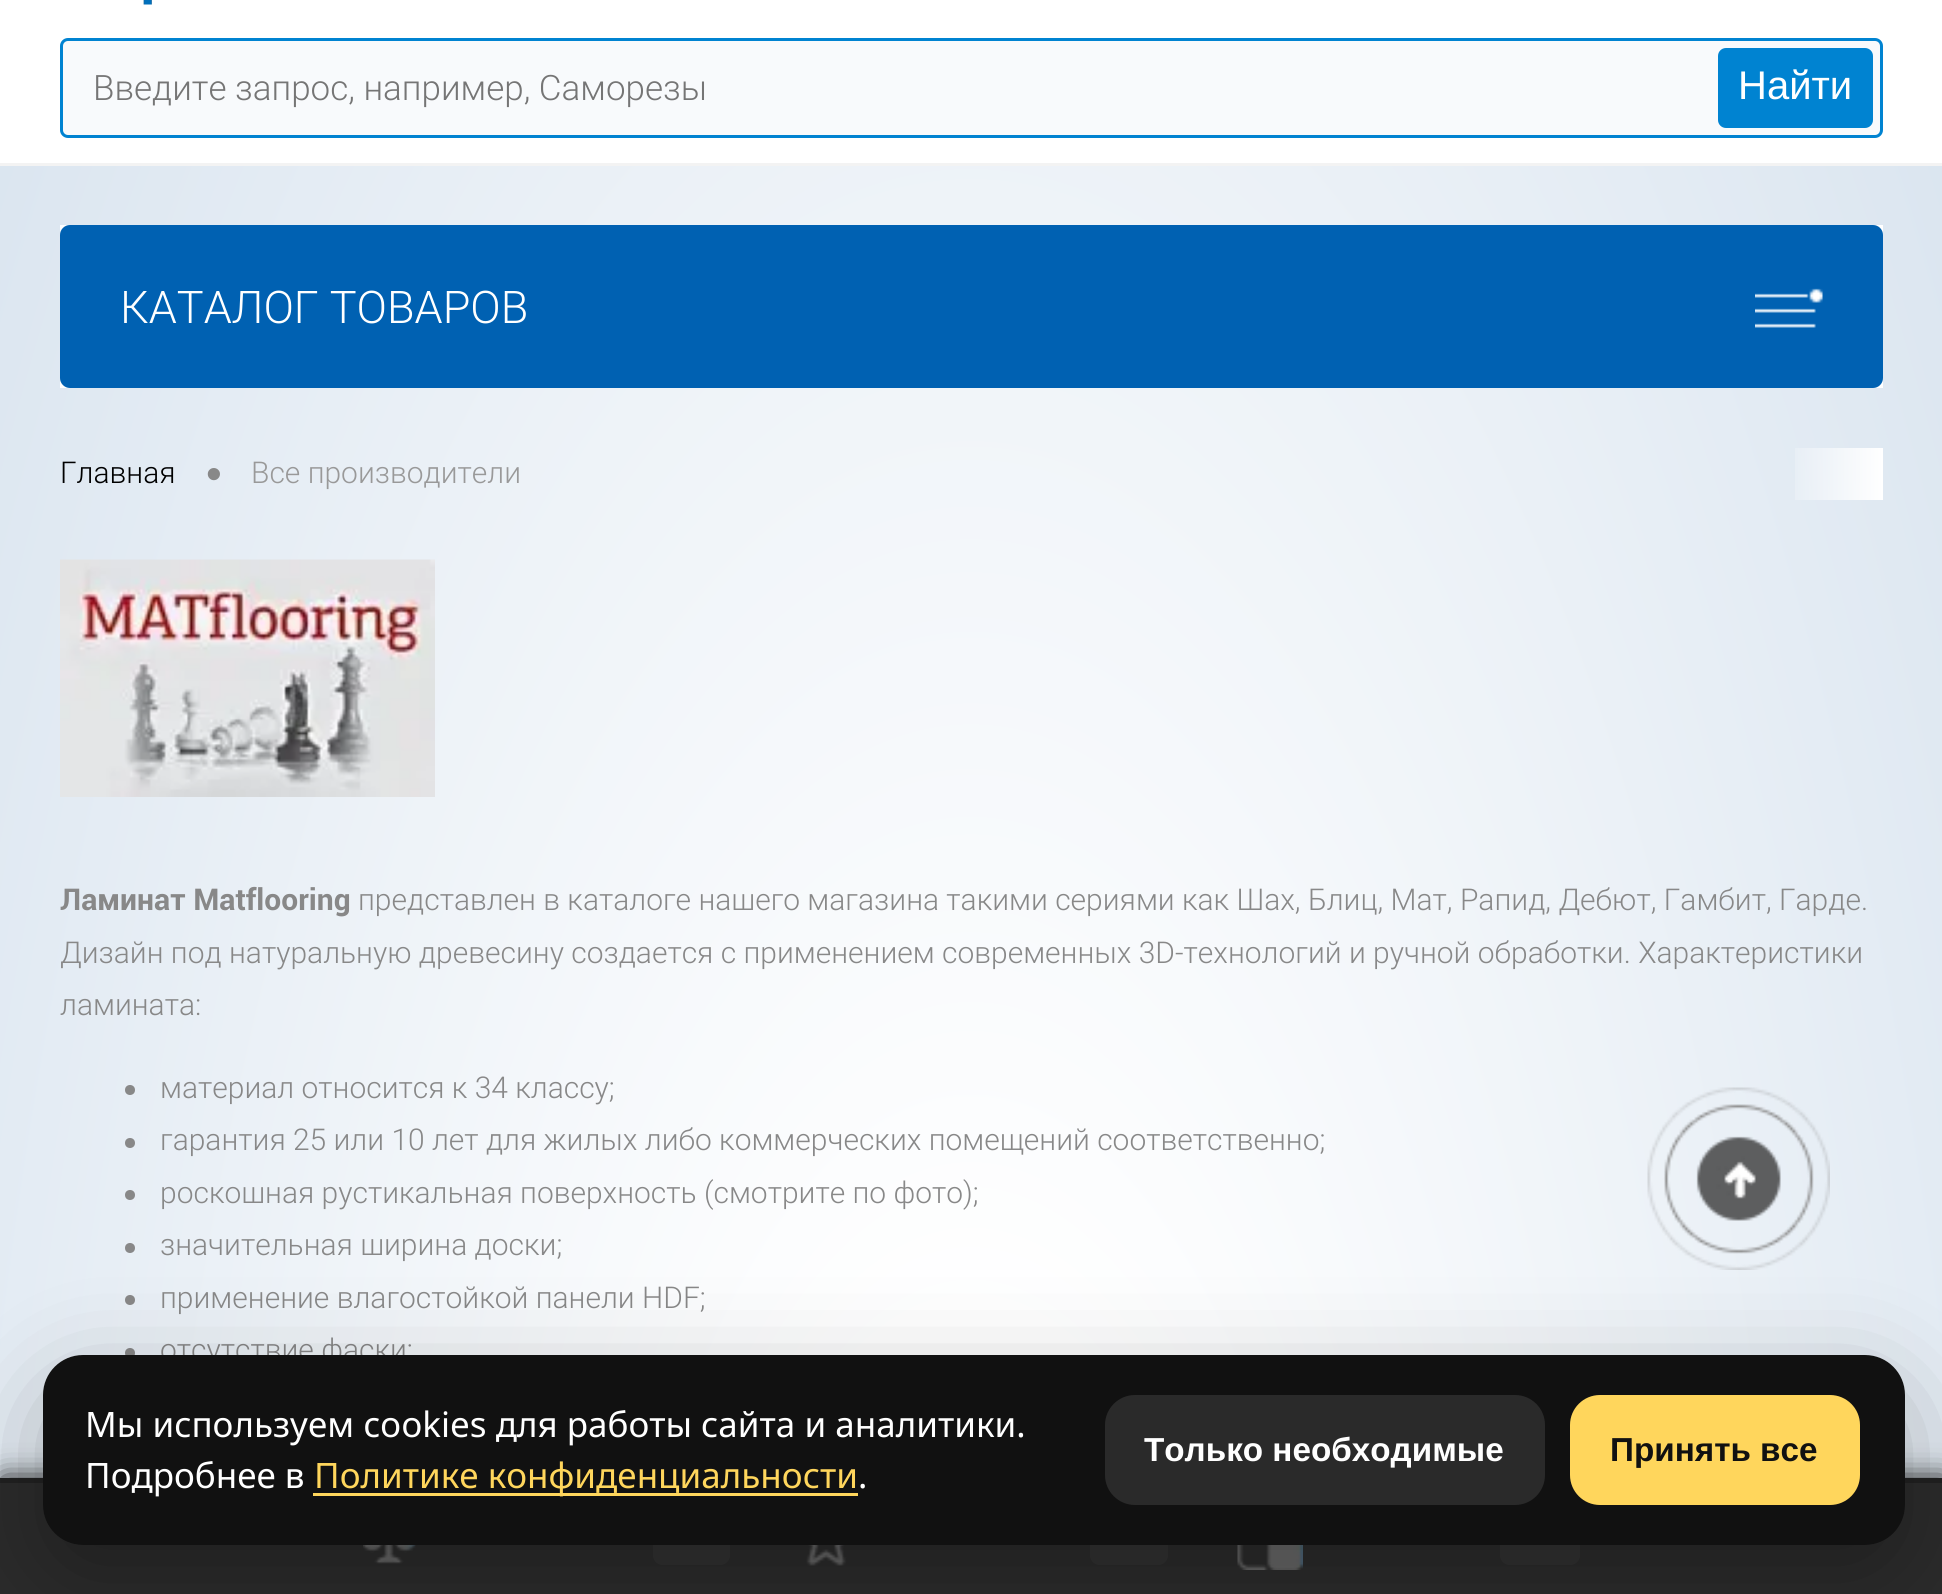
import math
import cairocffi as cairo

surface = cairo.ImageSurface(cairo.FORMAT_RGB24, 1942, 1594)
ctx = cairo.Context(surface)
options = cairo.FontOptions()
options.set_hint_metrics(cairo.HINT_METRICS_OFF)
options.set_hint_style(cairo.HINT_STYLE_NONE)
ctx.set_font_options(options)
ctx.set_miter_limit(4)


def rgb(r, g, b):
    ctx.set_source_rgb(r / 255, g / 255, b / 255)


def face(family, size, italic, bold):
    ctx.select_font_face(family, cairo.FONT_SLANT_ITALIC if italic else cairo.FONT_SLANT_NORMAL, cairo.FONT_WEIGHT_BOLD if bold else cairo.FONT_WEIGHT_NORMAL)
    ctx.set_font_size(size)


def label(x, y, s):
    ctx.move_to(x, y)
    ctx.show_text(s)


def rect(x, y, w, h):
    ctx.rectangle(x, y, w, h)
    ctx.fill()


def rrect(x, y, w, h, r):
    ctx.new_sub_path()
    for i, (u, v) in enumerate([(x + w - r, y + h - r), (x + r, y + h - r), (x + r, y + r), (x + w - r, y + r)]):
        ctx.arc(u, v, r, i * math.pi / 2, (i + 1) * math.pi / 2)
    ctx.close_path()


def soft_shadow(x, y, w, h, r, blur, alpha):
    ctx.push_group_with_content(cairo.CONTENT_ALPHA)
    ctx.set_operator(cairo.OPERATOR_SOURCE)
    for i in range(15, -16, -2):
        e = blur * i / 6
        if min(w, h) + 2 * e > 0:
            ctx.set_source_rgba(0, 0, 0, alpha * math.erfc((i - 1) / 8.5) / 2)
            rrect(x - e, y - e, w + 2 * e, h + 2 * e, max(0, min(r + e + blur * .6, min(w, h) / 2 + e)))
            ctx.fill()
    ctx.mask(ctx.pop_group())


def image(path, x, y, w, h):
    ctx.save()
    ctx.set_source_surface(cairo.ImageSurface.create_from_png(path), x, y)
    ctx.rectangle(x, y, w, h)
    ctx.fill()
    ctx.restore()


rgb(255, 255, 255)
ctx.paint()
gradient = cairo.RadialGradient(0, 0, 0, 0, 0, 1)
gradient.set_matrix(cairo.Matrix(1 / 1374, 0, 0, 1 / 3518, -1 * 971 / 1374, -1 * 2110 / 3518))
gradient.add_color_stop_rgba(0.22, 1, 1, 1, 1)
gradient.add_color_stop_rgba(1, 0.839, 0.886, 0.933, 1)
ctx.set_source(gradient)
rect(0, 166, 1942, 1312)
rgb(243, 243, 243)
rect(0, 163, 1942, 3)
image('image0.png', 143, 0, 9, 5)
rgb(248, 250, 252)
rrect(61.5, 39.5, 1820, 97, 6.5)
ctx.fill_preserve()
rgb(0, 131, 209)
ctx.set_line_width(3)
ctx.stroke()
face('Roboto Light', 35, 0, 0)
rgb(117, 117, 117)
label(93, 100, 'Введите запрос, например, Саморезы')
rgb(0, 131, 209)
rrect(1718, 48, 155, 80, 8)
ctx.fill()
face('Liberation Sans', 40, 0, 0)
rgb(255, 255, 255)
label(1738, 99, 'Найти')
rect(60, 225, 1823, 163)
rgb(0, 97, 178)
rrect(60, 225, 1823, 163, 10)
ctx.fill()
face('Roboto Light', 45, 0, 0)
rgb(255, 255, 255)
label(120, 323, 'КАТАЛОГ ТОВАРОВ')
image('image1.png', 1755, 288, 68, 40)
face('Roboto Light', 30, 0, 0)
rgb(0, 0, 0)
label(60, 483, 'Главная')
face('Liberation Sans', 45, 0, 0)
rgb(136, 136, 136)
label(206, 489, '•')
face('Roboto Light', 30, 0, 0)
rgb(153, 153, 153)
label(251, 483, 'Все производители')
gradient = cairo.LinearGradient(1795, 474, 1883, 474)
gradient.add_color_stop_rgba(0, 1, 1, 1, 0.2)
gradient.add_color_stop_rgba(1, 1, 1, 1, 1)
ctx.set_source(gradient)
rect(1795, 448, 88, 52)
image('image2.png', 60, 559, 375, 238)
face('Roboto', 30, 0, 1)
rgb(136, 136, 136)
label(60, 910, 'Ламинат Matflooring')
face('Roboto Light', 30, 0, 0)
label(358, 910, 'представлен в каталоге нашего магазина такими сериями как Шах, Блиц, Мат, Рапид, Дебют, Гамбит, Гарде.')
label(60, 963, 'Дизайн под натуральную древесину создается с применением современных 3D-технологий и ручной обработки. Характеристики')
label(60, 1015, 'ламината:')
ctx.new_path()
ctx.arc(130, 1090, 5, 0, 2 * math.pi)
ctx.fill()
label(160, 1098, 'материал относится к 34 классу;')
ctx.new_path()
ctx.arc(130, 1143, 5, 0, 2 * math.pi)
ctx.fill()
label(160, 1150, 'гарантия 25 или 10 лет для жилых либо коммерческих помещений соответственно;')
ctx.new_path()
ctx.arc(130, 1195, 5, 0, 2 * math.pi)
ctx.fill()
label(160, 1203, 'роскошная рустикальная поверхность (смотрите по фото);')
ctx.new_path()
ctx.arc(130, 1248, 5, 0, 2 * math.pi)
ctx.fill()
label(160, 1255, 'значительная ширина доски;')
ctx.new_path()
ctx.arc(130, 1300, 5, 0, 2 * math.pi)
ctx.fill()
label(160, 1308, 'применение влагостойкой панели HDF;')
ctx.new_path()
ctx.arc(130, 1353, 5, 0, 2 * math.pi)
ctx.fill()
label(160, 1360, 'отсутствие фаски;')
rgb(0, 0, 0)
soft_shadow(3, 1480, 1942, 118, 0, 15, 1)
rgb(43, 43, 43)
rect(0, 1483, 1942, 111)
rgb(32, 32, 32)
rect(0, 1478, 1942, 5)
image('image3.png', 363, 1545, 53, 19)
rgb(49, 49, 49)
rrect(653, 1515, 77, 50, 10)
ctx.fill()
image('image4.png', 806, 1545, 41, 21)
rrect(1090, 1515, 78, 50, 10)
ctx.fill()
image('image5.png', 1237, 1545, 66, 25)
rrect(1500, 1515, 80, 50, 10)
ctx.fill()
image('image6.png', 1647, 1087, 183, 183)
ctx.save()
ctx.set_fill_rule(cairo.FILL_RULE_EVEN_ODD)
ctx.new_path()
ctx.move_to(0, 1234)
ctx.line_to(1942, 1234)
ctx.line_to(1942, 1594)
ctx.line_to(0, 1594)
ctx.close_path()
ctx.move_to(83, 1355)
ctx.line_to(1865, 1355)
ctx.curve_to(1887, 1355, 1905, 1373, 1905, 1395)
ctx.line_to(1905, 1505)
ctx.curve_to(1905, 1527, 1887, 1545, 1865, 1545)
ctx.line_to(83, 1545)
ctx.curve_to(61, 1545, 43, 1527, 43, 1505)
ctx.line_to(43, 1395)
ctx.curve_to(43, 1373, 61, 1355, 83, 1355)
ctx.close_path()
ctx.clip()
rgb(0, 0, 0)
soft_shadow(43, 1385, 1862, 190, 40, 50, 0.28)
ctx.restore()
rgb(17, 17, 17)
rrect(43, 1355, 1862, 190, 40)
ctx.fill()
face('Noto Sans', 35, 0, 0)
rgb(255, 255, 255)
label(85, 1437, 'Мы используем cookies для работы сайта и аналитики.')
label(85, 1488, 'Подробнее в')
rgb(255, 214, 92)
rect(313, 1493, 545, 3)
label(314, 1488, 'Политике конфиденциальности')
rgb(255, 255, 255)
label(858, 1488, '.')
rgb(42, 42, 42)
rrect(1105, 1395, 440, 110, 30)
ctx.fill()
face('Liberation Sans', 33.25, 0, 1)
rgb(255, 255, 255)
label(1144, 1461, 'Только необходимые')
rgb(255, 214, 92)
rrect(1570, 1395, 290, 110, 30)
ctx.fill()
rgb(17, 17, 17)
label(1610, 1461, 'Принять все')
surface.write_to_png('render.png')
